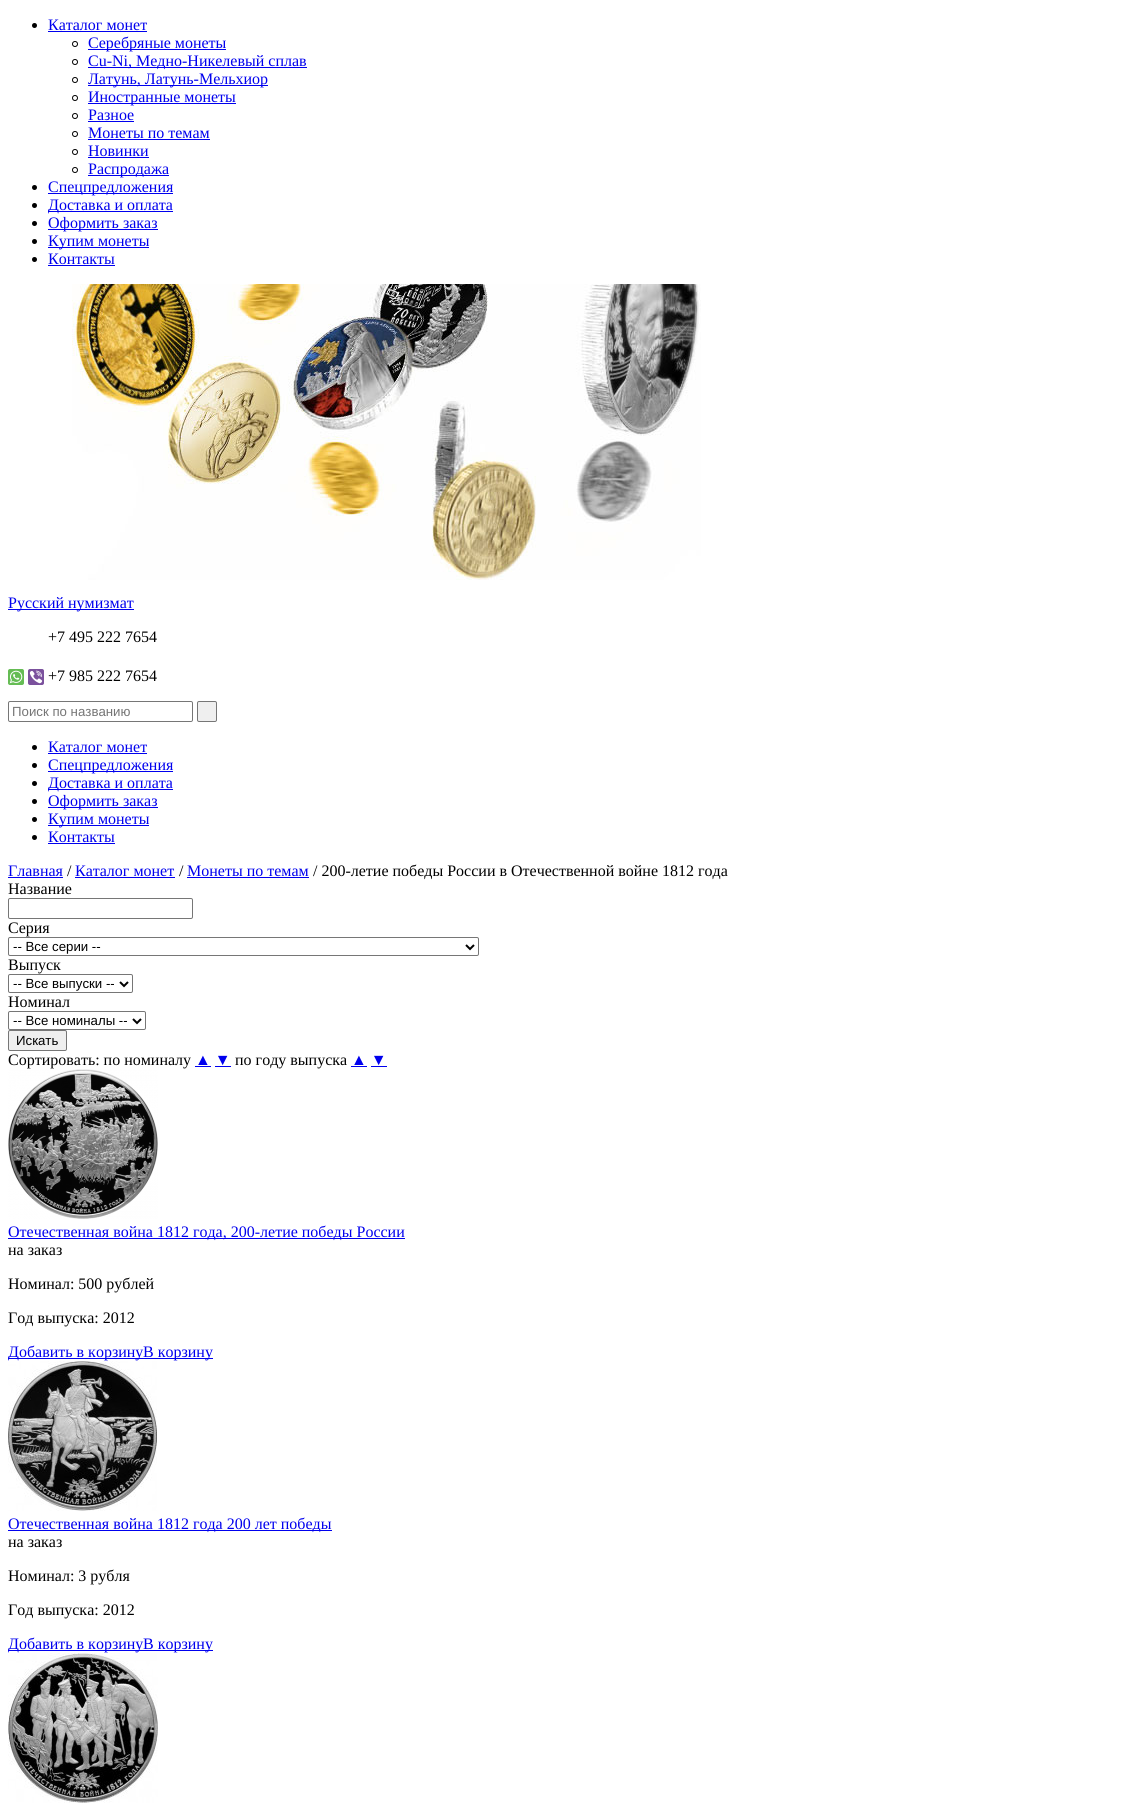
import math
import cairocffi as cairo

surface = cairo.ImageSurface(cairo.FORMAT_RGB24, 1128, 1805)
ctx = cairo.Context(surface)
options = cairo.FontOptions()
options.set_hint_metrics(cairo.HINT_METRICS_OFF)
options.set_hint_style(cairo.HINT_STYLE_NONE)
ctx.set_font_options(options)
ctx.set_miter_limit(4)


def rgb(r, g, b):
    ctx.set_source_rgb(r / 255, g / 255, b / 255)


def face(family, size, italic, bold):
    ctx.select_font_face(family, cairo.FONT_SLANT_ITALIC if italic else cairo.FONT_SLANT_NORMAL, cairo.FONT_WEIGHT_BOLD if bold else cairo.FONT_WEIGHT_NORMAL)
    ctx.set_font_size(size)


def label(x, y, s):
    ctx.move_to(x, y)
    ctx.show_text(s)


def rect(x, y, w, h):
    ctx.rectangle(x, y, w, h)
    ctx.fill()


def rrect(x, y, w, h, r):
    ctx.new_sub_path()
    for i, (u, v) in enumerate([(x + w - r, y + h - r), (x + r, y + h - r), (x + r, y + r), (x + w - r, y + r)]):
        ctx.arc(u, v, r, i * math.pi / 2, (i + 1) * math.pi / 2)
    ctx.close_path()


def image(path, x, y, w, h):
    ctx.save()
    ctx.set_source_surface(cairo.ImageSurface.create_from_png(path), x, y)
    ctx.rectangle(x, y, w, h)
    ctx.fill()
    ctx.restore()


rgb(255, 255, 255)
ctx.paint()
rgb(0, 0, 0)
ctx.arc(34.5, 25.5, 2.5, 0, 2 * math.pi)
ctx.fill()
face('Liberation Serif', 16, 0, 0)
rgb(0, 0, 238)
label(48, 30, 'Каталог монет')
rect(48, 31, 99, 1)
ctx.new_path()
ctx.arc(75, 44, 2.5, 0, 2 * math.pi)
rgb(0, 0, 0)
ctx.set_line_width(1)
ctx.stroke()
rgb(0, 0, 238)
rect(88, 49, 138, 1)
label(88, 48, 'Серебряные монеты')
ctx.new_path()
ctx.arc(75, 62, 2.5, 0, 2 * math.pi)
rgb(0, 0, 0)
ctx.stroke()
rgb(0, 0, 238)
rect(88, 67, 219, 1)
label(88, 66, 'Cu-Ni, Медно-Никелевый сплав')
ctx.new_path()
ctx.arc(75, 80, 2.5, 0, 2 * math.pi)
rgb(0, 0, 0)
ctx.stroke()
rgb(0, 0, 238)
rect(88, 85, 180, 1)
label(88, 84, 'Латунь, Латунь-Мельхиор')
ctx.new_path()
ctx.arc(75, 98, 2.5, 0, 2 * math.pi)
rgb(0, 0, 0)
ctx.stroke()
rgb(0, 0, 238)
rect(88, 103, 148, 1)
label(88, 102, 'Иностранные монеты')
ctx.new_path()
ctx.arc(75, 116, 2.5, 0, 2 * math.pi)
rgb(0, 0, 0)
ctx.stroke()
rgb(0, 0, 238)
label(88, 120, 'Разное')
rect(88, 121, 46, 1)
ctx.new_path()
ctx.arc(75, 134, 2.5, 0, 2 * math.pi)
rgb(0, 0, 0)
ctx.stroke()
rgb(0, 0, 238)
label(88, 138, 'Монеты по темам')
rect(88, 139, 122, 1)
ctx.new_path()
ctx.arc(75, 152, 2.5, 0, 2 * math.pi)
rgb(0, 0, 0)
ctx.stroke()
rgb(0, 0, 238)
label(88, 156, 'Новинки')
rect(88, 157, 61, 1)
ctx.new_path()
ctx.arc(75, 170, 2.5, 0, 2 * math.pi)
rgb(0, 0, 0)
ctx.stroke()
rgb(0, 0, 238)
rect(88, 175, 81, 1)
label(88, 174, 'Распродажа')
rgb(0, 0, 0)
ctx.new_path()
ctx.arc(34.5, 187.5, 2.5, 0, 2 * math.pi)
ctx.fill()
rgb(0, 0, 238)
rect(48, 193, 125, 1)
label(48, 192, 'Спецпредложения')
rgb(0, 0, 0)
ctx.new_path()
ctx.arc(34.5, 205.5, 2.5, 0, 2 * math.pi)
ctx.fill()
rgb(0, 0, 238)
rect(48, 211, 125, 1)
label(48, 210, 'Доставка и оплата')
rgb(0, 0, 0)
ctx.new_path()
ctx.arc(34.5, 223.5, 2.5, 0, 2 * math.pi)
ctx.fill()
rgb(0, 0, 238)
rect(48, 229, 110, 1)
label(48, 228, 'Оформить заказ')
rgb(0, 0, 0)
ctx.new_path()
ctx.arc(34.5, 241.5, 2.5, 0, 2 * math.pi)
ctx.fill()
rgb(0, 0, 238)
rect(48, 247, 101, 1)
label(48, 246, 'Купим монеты')
rgb(0, 0, 0)
ctx.new_path()
ctx.arc(34.5, 259.5, 2.5, 0, 2 * math.pi)
ctx.fill()
rgb(0, 0, 238)
label(48, 264, 'Контакты')
rect(48, 265, 67, 1)
image('image0.png', 72, 284, 629, 296)
rect(8, 609, 126, 1)
label(8, 608, 'Русский нумизмат')
rgb(0, 0, 0)
label(48, 642, '+7 495 222 7654')
image('image1.png', 8, 669, 16, 16)
image('image2.png', 28, 669, 16, 16)
label(48, 681, '+7 985 222 7654')
rrect(8.5, 701.5, 184, 20, 1.5)
rgb(118, 118, 118)
ctx.stroke()
face('Liberation Sans', 13.25, 0, 0)
rgb(117, 117, 117)
label(12, 716, 'Поиск по названию')
rgb(239, 239, 239)
rrect(197.5, 701.5, 19, 20, 1.5)
ctx.fill_preserve()
rgb(118, 118, 118)
ctx.stroke()
rgb(0, 0, 0)
ctx.arc(34.5, 747.5, 2.5, 0, 2 * math.pi)
ctx.fill()
face('Liberation Serif', 16, 0, 0)
rgb(0, 0, 238)
label(48, 752, 'Каталог монет')
rect(48, 753, 99, 1)
rgb(0, 0, 0)
ctx.new_path()
ctx.arc(34.5, 765.5, 2.5, 0, 2 * math.pi)
ctx.fill()
rgb(0, 0, 238)
rect(48, 771, 125, 1)
label(48, 770, 'Спецпредложения')
rgb(0, 0, 0)
ctx.new_path()
ctx.arc(34.5, 783.5, 2.5, 0, 2 * math.pi)
ctx.fill()
rgb(0, 0, 238)
rect(48, 789, 125, 1)
label(48, 788, 'Доставка и оплата')
rgb(0, 0, 0)
ctx.new_path()
ctx.arc(34.5, 801.5, 2.5, 0, 2 * math.pi)
ctx.fill()
rgb(0, 0, 238)
rect(48, 807, 110, 1)
label(48, 806, 'Оформить заказ')
rgb(0, 0, 0)
ctx.new_path()
ctx.arc(34.5, 819.5, 2.5, 0, 2 * math.pi)
ctx.fill()
rgb(0, 0, 238)
rect(48, 825, 101, 1)
label(48, 824, 'Купим монеты')
rgb(0, 0, 0)
ctx.new_path()
ctx.arc(34.5, 837.5, 2.5, 0, 2 * math.pi)
ctx.fill()
rgb(0, 0, 238)
label(48, 842, 'Контакты')
rect(48, 843, 67, 1)
label(8, 876, 'Главная')
rect(8, 877, 55, 1)
rgb(0, 0, 0)
label(67, 876, '/')
rgb(0, 0, 238)
label(75, 876, 'Каталог монет')
rect(75, 877, 100, 1)
rgb(0, 0, 0)
label(179, 876, '/')
rgb(0, 0, 238)
label(187, 876, 'Монеты по темам')
rect(187, 877, 122, 1)
rgb(0, 0, 0)
label(313, 876, '/ 200-летие победы России в Отечественной войне 1812 года')
label(8, 894, 'Название')
rrect(8.5, 898.5, 184, 20, 1.5)
rgb(118, 118, 118)
ctx.stroke()
rgb(0, 0, 0)
label(8, 933, 'Серия')
rrect(8.5, 937.5, 470, 18, 1.5)
rgb(118, 118, 118)
ctx.stroke()
ctx.new_path()
ctx.move_to(466, 945)
ctx.line_to(470, 949)
ctx.line_to(474, 945)
rgb(0, 0, 0)
ctx.set_line_width(2)
ctx.stroke()
face('Liberation Sans', 13.25, 0, 0)
label(13, 951, '-- Все серии --')
face('Liberation Serif', 16, 0, 0)
label(8, 970, 'Выпуск')
rrect(8.5, 974.5, 124, 18, 1.5)
rgb(118, 118, 118)
ctx.set_line_width(1)
ctx.stroke()
ctx.new_path()
ctx.move_to(120, 982)
ctx.line_to(124, 986)
ctx.line_to(128, 982)
rgb(0, 0, 0)
ctx.set_line_width(2)
ctx.stroke()
face('Liberation Sans', 13.25, 0, 0)
label(13, 988, '-- Все выпуски --')
face('Liberation Serif', 16, 0, 0)
label(8, 1007, 'Номинал')
rrect(8.5, 1011.5, 137, 18, 1.5)
rgb(118, 118, 118)
ctx.set_line_width(1)
ctx.stroke()
ctx.new_path()
ctx.move_to(133, 1019)
ctx.line_to(137, 1023)
ctx.line_to(141, 1019)
rgb(0, 0, 0)
ctx.set_line_width(2)
ctx.stroke()
face('Liberation Sans', 13.25, 0, 0)
label(13, 1025, '-- Все номиналы --')
rgb(239, 239, 239)
rrect(8.5, 1030.5, 58, 20, 1.5)
ctx.fill_preserve()
rgb(118, 118, 118)
ctx.set_line_width(1)
ctx.stroke()
rgb(0, 0, 0)
label(16, 1045, 'Искать')
face('Liberation Serif', 16, 0, 0)
label(8, 1065, 'Сортировать: по номиналу')
rgb(0, 0, 238)
label(195, 1065, '▲ ▼')
rect(195, 1066, 16, 1)
rect(215, 1066, 16, 1)
rgb(0, 0, 0)
label(235, 1065, 'по году выпуска')
rgb(0, 0, 238)
rect(351, 1066, 16, 1)
label(351, 1065, '▲ ▼')
rect(371, 1066, 16, 1)
image('image3.png', 8, 1069, 150, 150)
rect(8, 1238, 397, 1)
label(8, 1237, 'Отечественная война 1812 года, 200-летие победы России')
rgb(0, 0, 0)
label(8, 1255, 'на заказ')
label(8, 1289, 'Номинал: 500 рублей')
label(8, 1323, 'Год выпуска: 2012')
rgb(0, 0, 238)
rect(8, 1358, 135, 1)
label(8, 1357, 'Добавить в корзину')
rect(143, 1358, 70, 1)
label(143, 1357, 'В корзину')
image('image4.png', 8, 1361, 149, 150)
rect(8, 1530, 324, 1)
label(8, 1529, 'Отечественная война 1812 года 200 лет победы')
rgb(0, 0, 0)
label(8, 1547, 'на заказ')
label(8, 1581, 'Номинал: 3 рубля')
label(8, 1615, 'Год выпуска: 2012')
rgb(0, 0, 238)
rect(8, 1650, 135, 1)
label(8, 1649, 'Добавить в корзину')
rect(143, 1650, 70, 1)
label(143, 1649, 'В корзину')
image('image5.png', 8, 1653, 150, 150)
surface.write_to_png('render.png')
